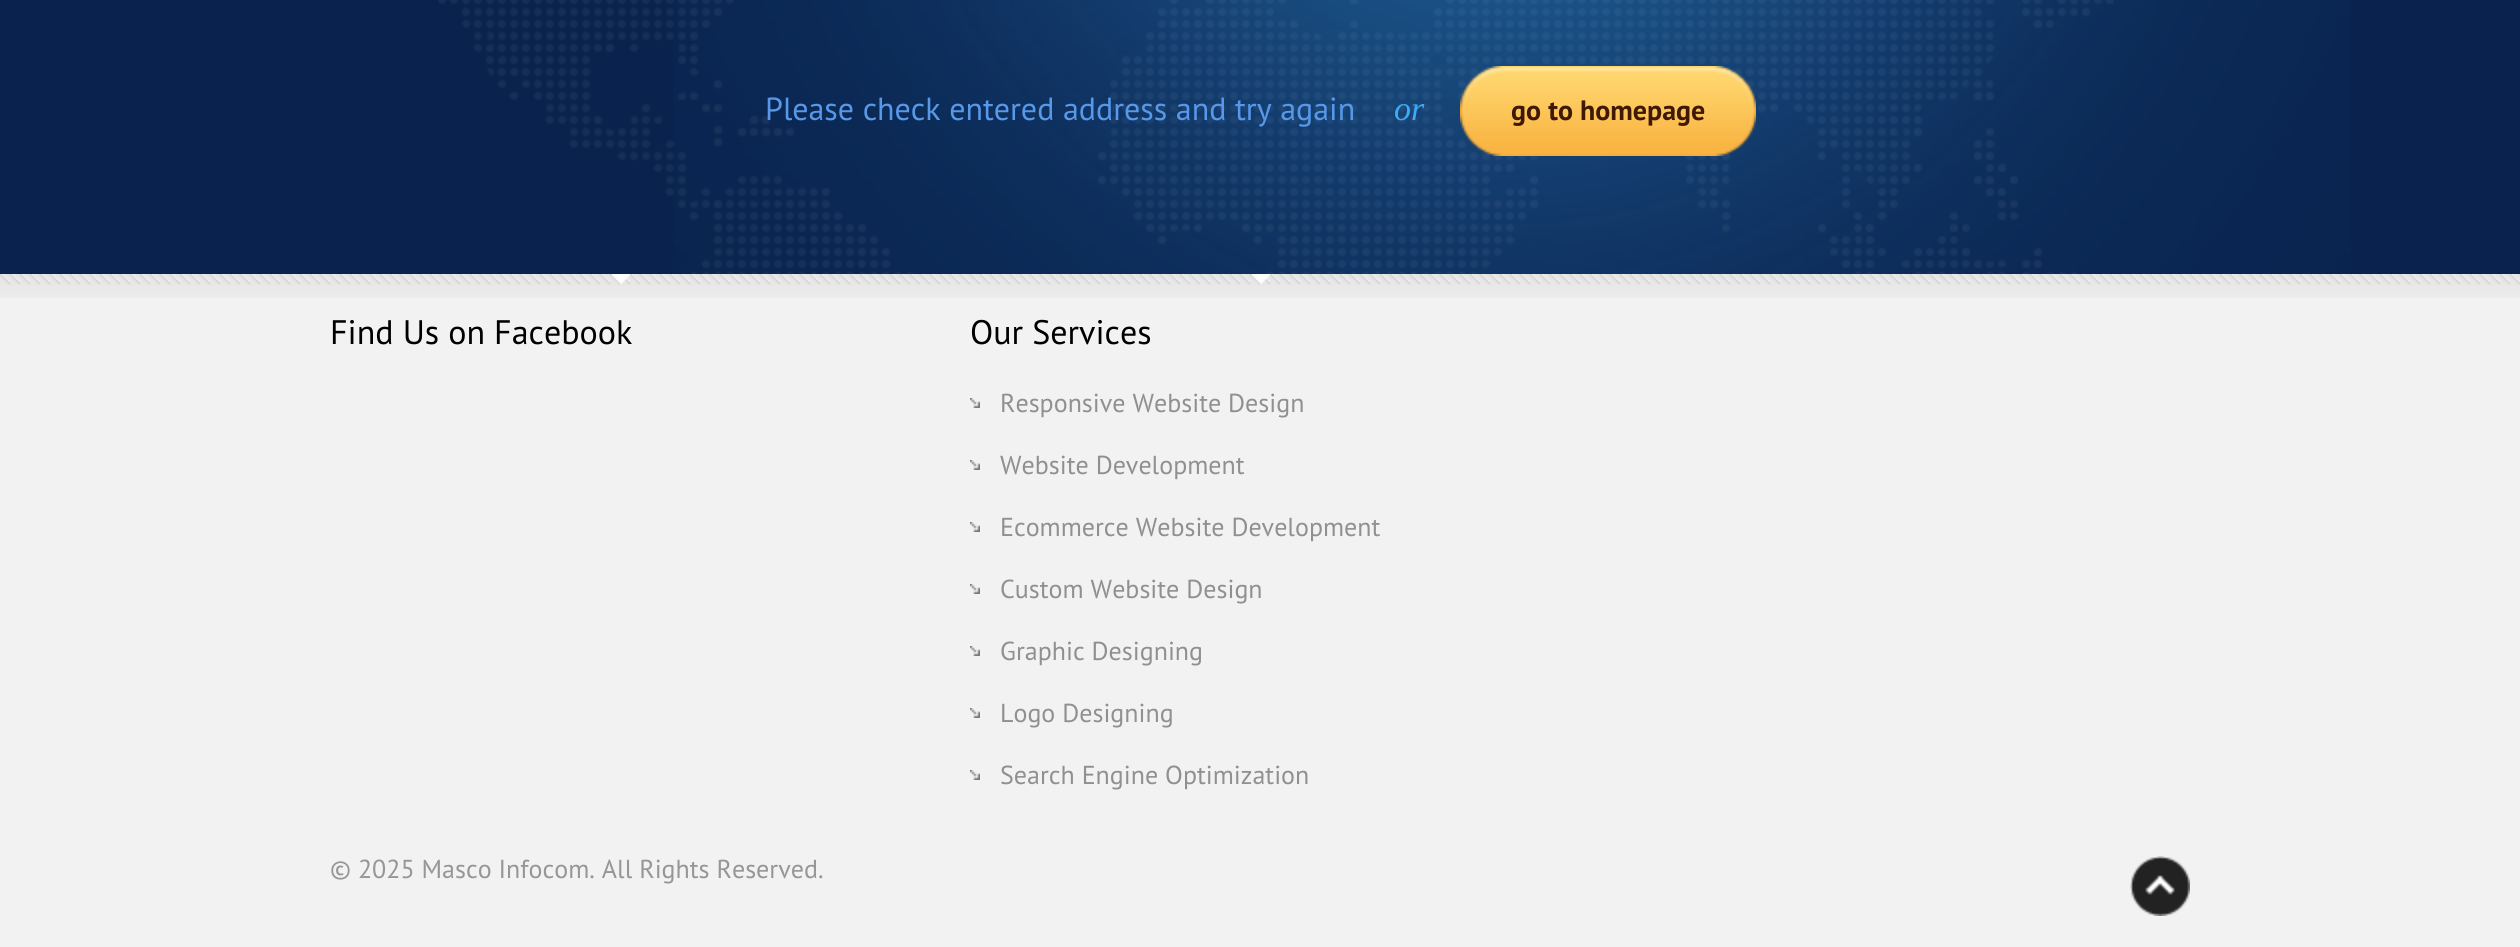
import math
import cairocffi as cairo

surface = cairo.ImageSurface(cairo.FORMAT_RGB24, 2520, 947)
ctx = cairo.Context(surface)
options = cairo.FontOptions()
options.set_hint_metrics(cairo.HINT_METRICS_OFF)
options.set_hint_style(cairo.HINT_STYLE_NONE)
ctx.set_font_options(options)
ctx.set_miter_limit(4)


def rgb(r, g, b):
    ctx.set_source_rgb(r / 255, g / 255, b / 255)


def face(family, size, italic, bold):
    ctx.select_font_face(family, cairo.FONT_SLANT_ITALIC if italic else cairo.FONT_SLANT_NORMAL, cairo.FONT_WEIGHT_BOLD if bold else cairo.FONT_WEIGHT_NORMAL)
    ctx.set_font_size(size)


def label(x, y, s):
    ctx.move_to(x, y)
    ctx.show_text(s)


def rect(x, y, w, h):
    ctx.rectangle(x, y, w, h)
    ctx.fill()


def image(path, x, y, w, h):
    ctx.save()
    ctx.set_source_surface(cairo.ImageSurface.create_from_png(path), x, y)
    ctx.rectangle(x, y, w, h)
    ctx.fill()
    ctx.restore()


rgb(242, 242, 242)
ctx.paint()
rgb(9, 35, 78)
rect(0, 0, 2520, 274)
image('image0.png', 438, 0, 1676, 274)
image('image1.png', 673, 0, 1678, 274)
face('PT Sans', 32, 0, 0)
rgb(88, 152, 233)
label(765, 120, 'Please check entered address and try again')
face('Liberation Serif', 34, 1, 0)
rgb(62, 170, 243)
label(1394, 120, 'or')
image('image2.png', 1706, 66, 50, 90)
image('image3.png', 1460, 66, 246, 90)
face('PT Sans', 28, 0, 1)
rgb(63, 25, 3)
label(1511, 120, 'go to homepage')
image('image4.png', 0, 274, 2520, 24)
image('image5.png', 612, 274, 18, 10)
face('PT Sans', 34, 0, 0)
rgb(0, 0, 0)
label(330, 344, 'Find Us on Facebook')
image('image5.png', 1252, 274, 18, 10)
label(970, 344, 'Our Services')
image('image6.png', 970, 398, 10, 10)
face('PT Sans', 26, 0, 0)
rgb(144, 144, 144)
label(1000, 412, 'Responsive Website Design')
image('image6.png', 970, 460, 10, 10)
label(1000, 474, 'Website Development')
image('image6.png', 970, 522, 10, 10)
label(1000, 536, 'Ecommerce Website Development')
image('image6.png', 970, 584, 10, 10)
label(1000, 598, 'Custom Website Design')
image('image6.png', 970, 646, 10, 10)
label(1000, 660, 'Graphic Designing')
image('image6.png', 970, 708, 10, 10)
label(1000, 722, 'Logo Designing')
image('image6.png', 970, 770, 10, 10)
label(1000, 784, 'Search Engine Optimization')
rgb(150, 150, 150)
label(330, 878, '© 2025 Masco Infocom. All Rights Reserved.')
image('image7.png', 2130, 856, 60, 60)
surface.write_to_png('render.png')
